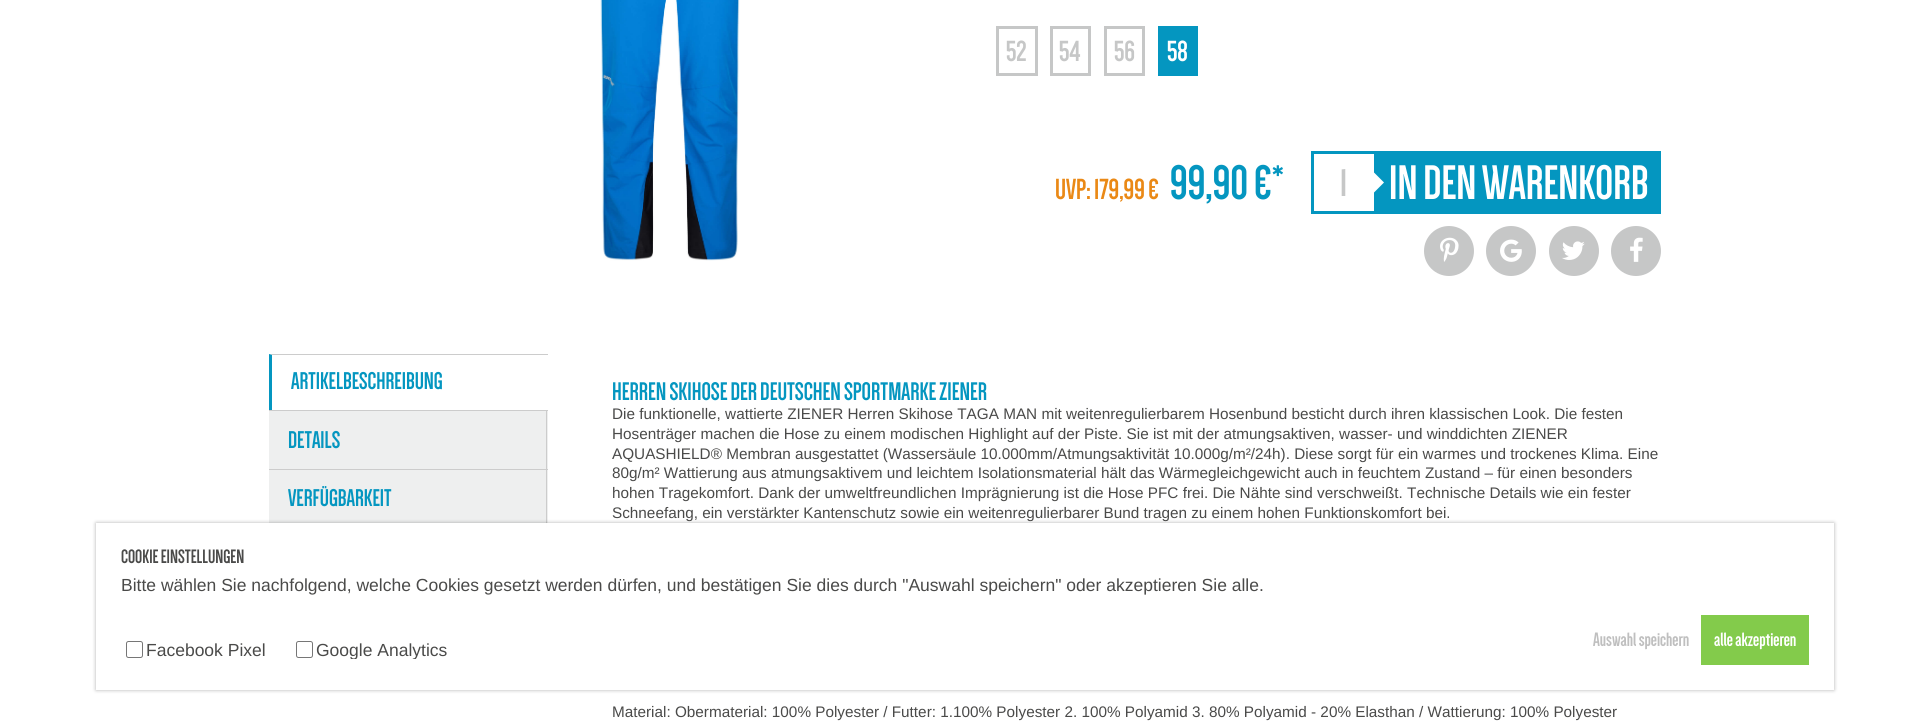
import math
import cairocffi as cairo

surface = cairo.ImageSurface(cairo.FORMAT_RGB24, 1929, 727)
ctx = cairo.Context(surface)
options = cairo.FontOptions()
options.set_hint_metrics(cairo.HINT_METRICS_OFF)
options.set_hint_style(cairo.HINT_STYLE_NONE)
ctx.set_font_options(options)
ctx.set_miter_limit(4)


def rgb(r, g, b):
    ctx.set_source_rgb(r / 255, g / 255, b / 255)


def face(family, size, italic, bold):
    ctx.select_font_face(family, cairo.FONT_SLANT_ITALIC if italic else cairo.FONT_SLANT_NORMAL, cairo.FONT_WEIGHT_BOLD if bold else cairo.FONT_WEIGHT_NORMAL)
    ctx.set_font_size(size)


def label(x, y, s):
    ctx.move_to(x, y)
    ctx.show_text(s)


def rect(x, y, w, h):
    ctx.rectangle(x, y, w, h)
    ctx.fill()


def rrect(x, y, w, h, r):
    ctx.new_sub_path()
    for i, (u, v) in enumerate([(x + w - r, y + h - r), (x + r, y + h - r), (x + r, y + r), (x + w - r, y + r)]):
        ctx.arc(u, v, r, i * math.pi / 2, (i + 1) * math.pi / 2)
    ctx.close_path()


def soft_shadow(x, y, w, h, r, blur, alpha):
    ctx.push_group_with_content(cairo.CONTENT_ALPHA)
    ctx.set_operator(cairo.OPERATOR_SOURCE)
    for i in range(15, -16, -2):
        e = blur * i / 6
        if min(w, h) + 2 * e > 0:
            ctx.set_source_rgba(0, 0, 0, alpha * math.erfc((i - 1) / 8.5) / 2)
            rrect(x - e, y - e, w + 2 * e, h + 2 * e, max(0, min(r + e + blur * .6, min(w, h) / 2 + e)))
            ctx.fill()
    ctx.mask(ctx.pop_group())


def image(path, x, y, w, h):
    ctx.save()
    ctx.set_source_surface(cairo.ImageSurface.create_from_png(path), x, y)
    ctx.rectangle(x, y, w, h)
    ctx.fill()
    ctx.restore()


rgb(255, 255, 255)
ctx.paint()
image('image0.png', 600, 0, 140, 261)
ctx.rectangle(997.5, 27.5, 39, 47)
rgb(198, 199, 199)
ctx.set_line_width(3)
ctx.stroke()
face('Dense', 30, 0, 1)
label(1006, 61, '52')
ctx.rectangle(1051.5, 27.5, 38, 47)
ctx.stroke()
label(1059, 61, '54')
ctx.rectangle(1105.5, 27.5, 38, 47)
ctx.stroke()
label(1114, 61, '56')
rgb(4, 150, 192)
rect(1158, 26, 40, 50)
rgb(255, 255, 255)
label(1167, 61, '58')
rgb(234, 137, 22)
label(1055, 199, 'UVP: 179,99 €')
face('Dense', 50, 0, 1)
rgb(4, 150, 192)
label(1170, 199, '99,90 €*')
rect(1374, 151, 287, 63)
rect(1311, 151, 63, 3)
rect(1311, 211, 63, 3)
rect(1311, 151, 3, 63)
face('Dense', 40, 0, 1)
rgb(198, 199, 199)
label(1340, 196, '1')
rgb(255, 255, 255)
ctx.new_path()
ctx.move_to(1374, 192.5)
ctx.line_to(1374, 172.5)
ctx.line_to(1384, 182.5)
ctx.close_path()
ctx.fill()
face('Dense', 50, 0, 1)
label(1389, 199, 'IN DEN WARENKORB')
rgb(198, 199, 199)
ctx.new_path()
ctx.arc(1449, 251, 25, 0, 2 * math.pi)
ctx.fill()
image('image1.png', 1440, 237, 19, 25)
ctx.arc(1511, 251, 25, 0, 2 * math.pi)
ctx.fill()
image('image2.png', 1500, 239, 22, 23)
ctx.arc(1574, 251, 25, 0, 2 * math.pi)
ctx.fill()
image('image3.png', 1562, 241, 23, 19)
ctx.arc(1636, 251, 25, 0, 2 * math.pi)
ctx.fill()
image('image4.png', 1630, 237, 13, 25)
rgb(204, 204, 204)
ctx.new_path()
ctx.move_to(269, 354)
ctx.line_to(548, 354)
ctx.line_to(548, 355)
ctx.line_to(272, 355)
ctx.close_path()
ctx.fill()
rgb(4, 150, 192)
ctx.new_path()
ctx.move_to(269, 410)
ctx.line_to(269, 354)
ctx.line_to(272, 355)
ctx.line_to(272, 410)
ctx.close_path()
ctx.fill()
face('Dense', 25, 0, 1)
label(291, 389, 'ARTIKELBESCHREIBUNG')
rgb(238, 239, 239)
rect(269, 411, 279, 58)
rgb(204, 204, 204)
rect(269, 410, 279, 1)
rect(546, 410, 1, 59)
rgb(4, 150, 192)
label(288, 448, 'DETAILS')
rgb(238, 239, 239)
rect(269, 470, 279, 58)
rgb(204, 204, 204)
rect(269, 469, 279, 1)
rect(546, 469, 1, 59)
rgb(4, 150, 192)
label(288, 506, 'VERFÜGBARKEIT')
face('Dense', 26.25, 0, 1)
label(612, 400, 'HERREN SKIHOSE DER DEUTSCHEN SPORTMARKE ZIENER')
face('Liberation Sans', 15.3, 0, 0)
rgb(74, 74, 73)
label(612, 419, 'Die funktionelle, wattierte ZIENER Herren Skihose TAGA MAN mit weitenregulierbarem Hosenbund besticht durch ihren klassischen Look. Die festen')
label(612, 439, 'Hosenträger machen die Hose zu einem modischen Highlight auf der Piste. Sie ist mit der atmungsaktiven, wasser- und winddichten ZIENER')
label(612, 459, 'AQUASHIELD® Membran ausgestattet (Wassersäule 10.000mm/Atmungsaktivität 10.000g/m²/24h). Diese sorgt für ein warmes und trockenes Klima. Eine')
label(612, 478, '80g/m² Wattierung aus atmungsaktivem und leichtem Isolationsmaterial hält das Wärmegleichgewicht auch in feuchtem Zustand – für einen besonders')
label(612, 498, 'hohen Tragekomfort. Dank der umweltfreundlichen Imprägnierung ist die Hose PFC frei. Die Nähte sind verschweißt. Technische Details wie ein fester')
label(612, 518, 'Schneefang, ein verstärkter Kantenschutz sowie ein weitenregulierbarer Bund tragen zu einem hohen Funktionskomfort bei.')
label(612, 717, 'Material: Obermaterial: 100% Polyester / Futter: 1.100% Polyester 2. 100% Polyamid 3. 80% Polyamid - 20% Elasthan / Wattierung: 100% Polyester')
ctx.save()
ctx.set_fill_rule(cairo.FILL_RULE_EVEN_ODD)
ctx.new_path()
ctx.move_to(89, 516)
ctx.line_to(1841, 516)
ctx.line_to(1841, 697)
ctx.line_to(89, 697)
ctx.close_path()
ctx.move_to(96, 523)
ctx.line_to(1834, 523)
ctx.line_to(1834, 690)
ctx.line_to(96, 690)
ctx.close_path()
ctx.clip()
rgb(0, 0, 0)
soft_shadow(96, 523, 1738, 167, 0, 2, 0.3)
ctx.restore()
ctx.set_source_rgba(1, 1, 1, 0.97)
rect(96, 523, 1738, 167)
face('Dense', 20, 0, 1)
rgb(74, 74, 73)
label(121, 563, 'COOKIE EINSTELLUNGEN')
face('Liberation Sans', 17.5, 0, 0)
label(121, 591, 'Bitte wählen Sie nachfolgend, welche Cookies gesetzt werden dürfen, und bestätigen Sie dies durch "Auswahl speichern" oder akzeptieren Sie alle.')
rrect(126.5, 641.5, 16, 16, 2)
rgb(118, 118, 118)
ctx.set_line_width(1)
ctx.stroke()
rgb(74, 74, 73)
label(146, 656, 'Facebook Pixel')
rrect(296.5, 641.5, 16, 16, 2)
rgb(118, 118, 118)
ctx.stroke()
ctx.save()
ctx.rectangle(121, 615, 844, 44)
ctx.clip()
rgb(74, 74, 73)
label(316, 656, 'Google Analytics')
ctx.restore()
face('Dense', 20, 0, 1)
rgb(191, 191, 191)
label(1593, 646, 'Auswahl speichern')
rgb(131, 203, 75)
rect(1701, 615, 108, 50)
rgb(255, 255, 255)
label(1714, 646, 'alle akzeptieren')
surface.write_to_png('render.png')
